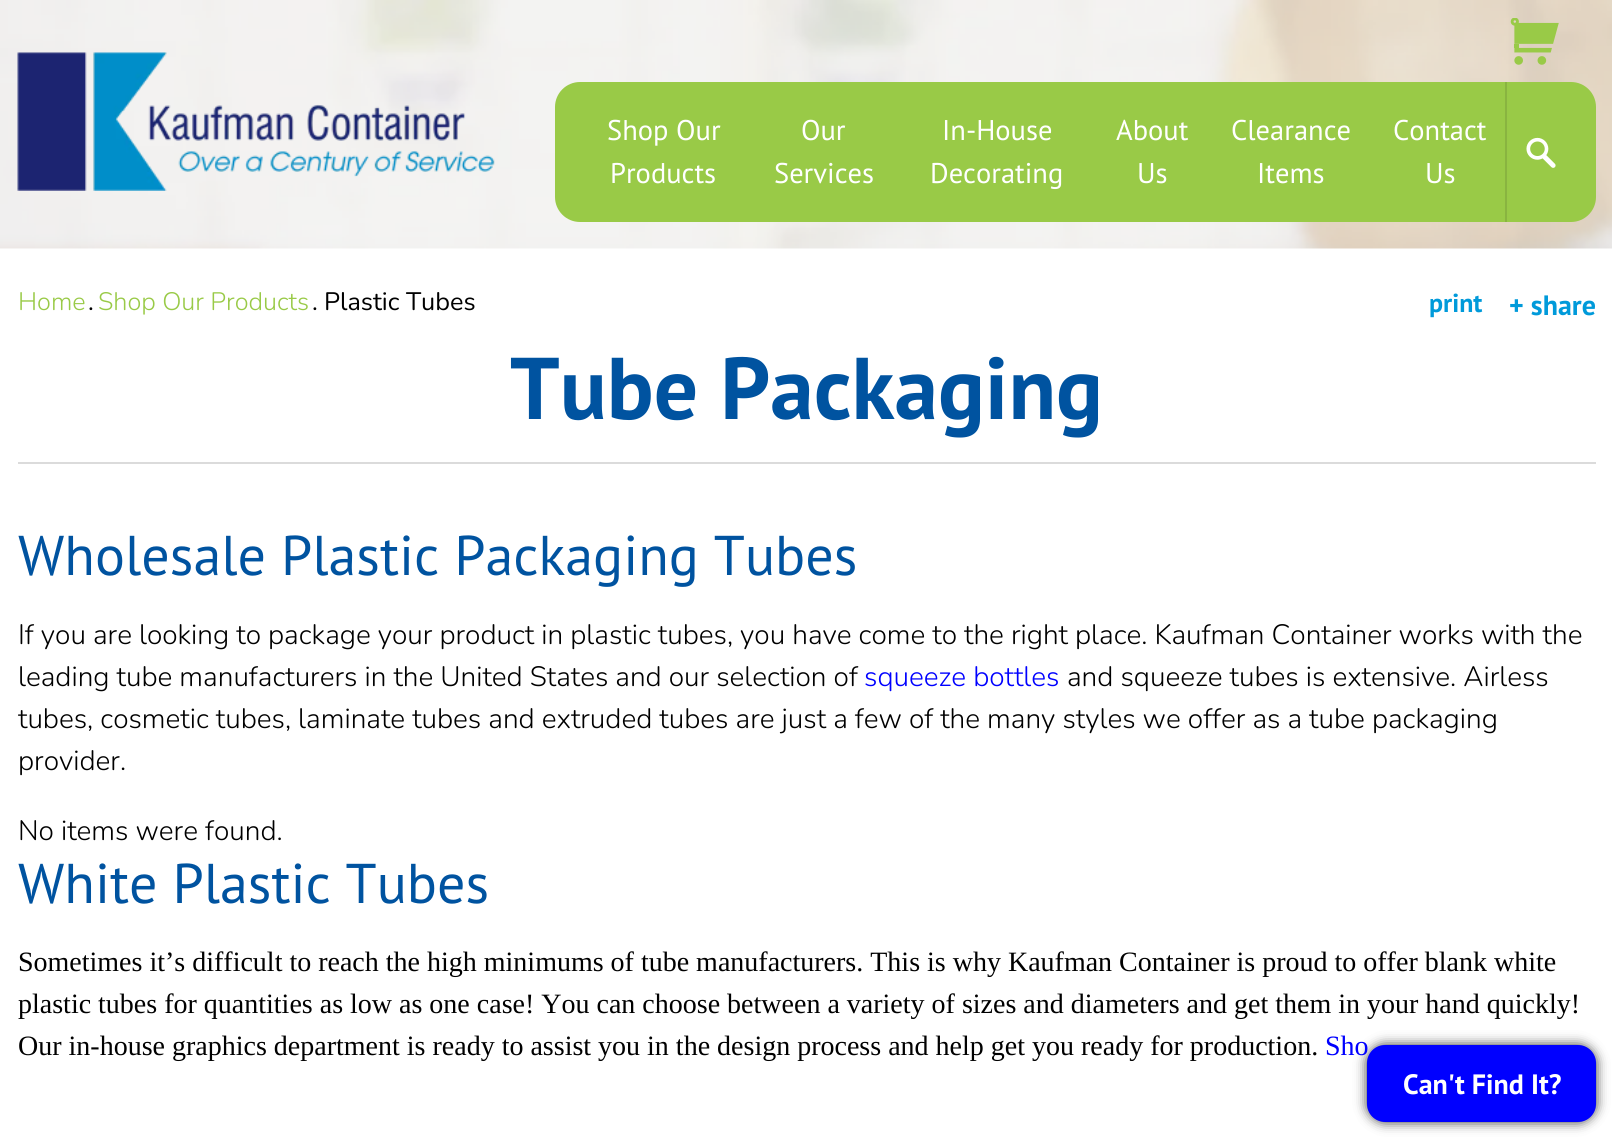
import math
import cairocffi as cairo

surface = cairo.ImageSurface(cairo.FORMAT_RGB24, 1612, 1138)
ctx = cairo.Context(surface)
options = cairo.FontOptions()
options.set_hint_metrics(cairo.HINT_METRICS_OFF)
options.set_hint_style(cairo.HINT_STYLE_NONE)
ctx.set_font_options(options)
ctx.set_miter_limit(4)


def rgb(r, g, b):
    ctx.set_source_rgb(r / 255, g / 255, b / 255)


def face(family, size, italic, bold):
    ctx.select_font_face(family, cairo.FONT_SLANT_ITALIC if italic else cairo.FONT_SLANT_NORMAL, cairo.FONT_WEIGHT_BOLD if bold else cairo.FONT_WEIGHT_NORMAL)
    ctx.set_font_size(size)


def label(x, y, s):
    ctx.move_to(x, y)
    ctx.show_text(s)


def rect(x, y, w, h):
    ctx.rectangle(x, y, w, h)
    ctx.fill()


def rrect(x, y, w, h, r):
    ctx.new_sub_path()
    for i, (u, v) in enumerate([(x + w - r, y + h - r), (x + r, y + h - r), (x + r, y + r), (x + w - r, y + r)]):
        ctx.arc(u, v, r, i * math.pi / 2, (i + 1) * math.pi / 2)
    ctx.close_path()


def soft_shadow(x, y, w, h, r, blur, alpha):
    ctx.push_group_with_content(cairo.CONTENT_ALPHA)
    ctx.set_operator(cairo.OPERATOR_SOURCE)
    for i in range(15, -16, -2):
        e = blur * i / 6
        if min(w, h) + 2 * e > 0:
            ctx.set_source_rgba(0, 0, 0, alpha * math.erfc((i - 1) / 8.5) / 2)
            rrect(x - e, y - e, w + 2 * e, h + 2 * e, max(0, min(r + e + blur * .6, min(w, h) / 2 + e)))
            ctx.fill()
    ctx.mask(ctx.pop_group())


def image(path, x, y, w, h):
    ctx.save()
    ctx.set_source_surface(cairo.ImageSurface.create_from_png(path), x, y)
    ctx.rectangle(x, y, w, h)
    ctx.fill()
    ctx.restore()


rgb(255, 255, 255)
ctx.paint()
image('image0.png', 0, 0, 1612, 249)
image('image1.png', 1510, 18, 49, 47)
image('image2.png', 17, 52, 478, 139)
rgb(153, 202, 71)
rrect(555, 82, 1041, 140, 25)
ctx.fill()
face('PT Sans', 28.5, 0, 0)
rgb(255, 255, 255)
label(607, 140, 'Shop Our')
label(610, 183, 'Products')
label(801, 140, 'Our')
label(774, 183, 'Services')
label(942, 140, 'In-House')
label(930, 183, 'Decorating')
label(1116, 140, 'About')
label(1137, 183, 'Us')
label(1231, 140, 'Clearance')
label(1257, 183, 'Items')
label(1393, 140, 'Contact')
label(1425, 183, 'Us')
rgb(137, 180, 64)
rect(1505, 82, 2, 140)
face('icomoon', 30, 0, 0)
rgb(255, 255, 255)
label(1526, 166, '>')
rgb(51, 51, 51)
soft_shadow(1367, 1045, 229, 77, 18, 6, 1)
rgb(0, 0, 255)
rrect(1367, 1045, 229, 77, 18)
ctx.fill()
face('PT Sans', 28, 0, 1)
rgb(255, 255, 255)
label(1403, 1094, 'Can\'t Find It?')
face('Nunito Light', 25.25, 0, 0)
rgb(153, 202, 71)
label(18, 310, 'Home')
face('Nunito', 25.25, 0, 0)
rgb(0, 0, 0)
label(88, 310, '.')
face('Nunito Light', 25.25, 0, 0)
rgb(153, 202, 71)
label(98, 310, 'Shop Our Products')
face('Nunito', 25.25, 0, 0)
rgb(0, 0, 0)
label(312, 310, '.')
label(324, 310, 'Plastic Tubes')
face('PT Sans', 26, 0, 1)
rgb(0, 154, 218)
label(1429, 312, 'print')
face('PT Sans', 28, 0, 1)
label(1509, 315, '+ share')
rgb(219, 219, 219)
rect(18, 462, 1578, 2)
face('PT Sans', 87.5, 0, 1)
rgb(0, 83, 160)
label(510, 419, 'Tube Packaging')
face('PT Sans', 56, 0, 0)
label(18, 575, 'Wholesale Plastic Packaging Tubes')
face('Nunito Light', 28, 0, 0)
rgb(0, 0, 0)
label(18, 644, 'If you are looking to package your product in plastic tubes, you have come to the right place. Kaufman Container works with the')
label(18, 686, 'leading tube manufacturers in the United States and our selection of')
rgb(0, 0, 255)
label(864, 686, 'squeeze bottles')
rgb(0, 0, 0)
label(1067, 686, 'and squeeze tubes is extensive. Airless')
label(18, 728, 'tubes, cosmetic tubes, laminate tubes and extruded tubes are just a few of the many styles we offer as a tube packaging')
label(18, 770, 'provider.')
label(18, 840, 'No items were found.')
face('PT Sans', 56, 0, 0)
rgb(0, 83, 160)
label(18, 903, 'White Plastic Tubes')
face('Liberation Serif', 28, 0, 0)
rgb(0, 0, 0)
label(18, 971, 'Sometimes it’s difficult to reach the high minimums of tube manufacturers. This is why Kaufman Container is proud to offer blank white')
label(18, 1013, 'plastic tubes for quantities as low as one case! You can choose between a variety of sizes and diameters and get them in your hand quickly!')
label(18, 1055, 'Our in-house graphics department is ready to assist you in the design process and help get you ready for production.')
rgb(0, 0, 255)
label(1325, 1055, 'Sho')
surface.write_to_png('render.png')
